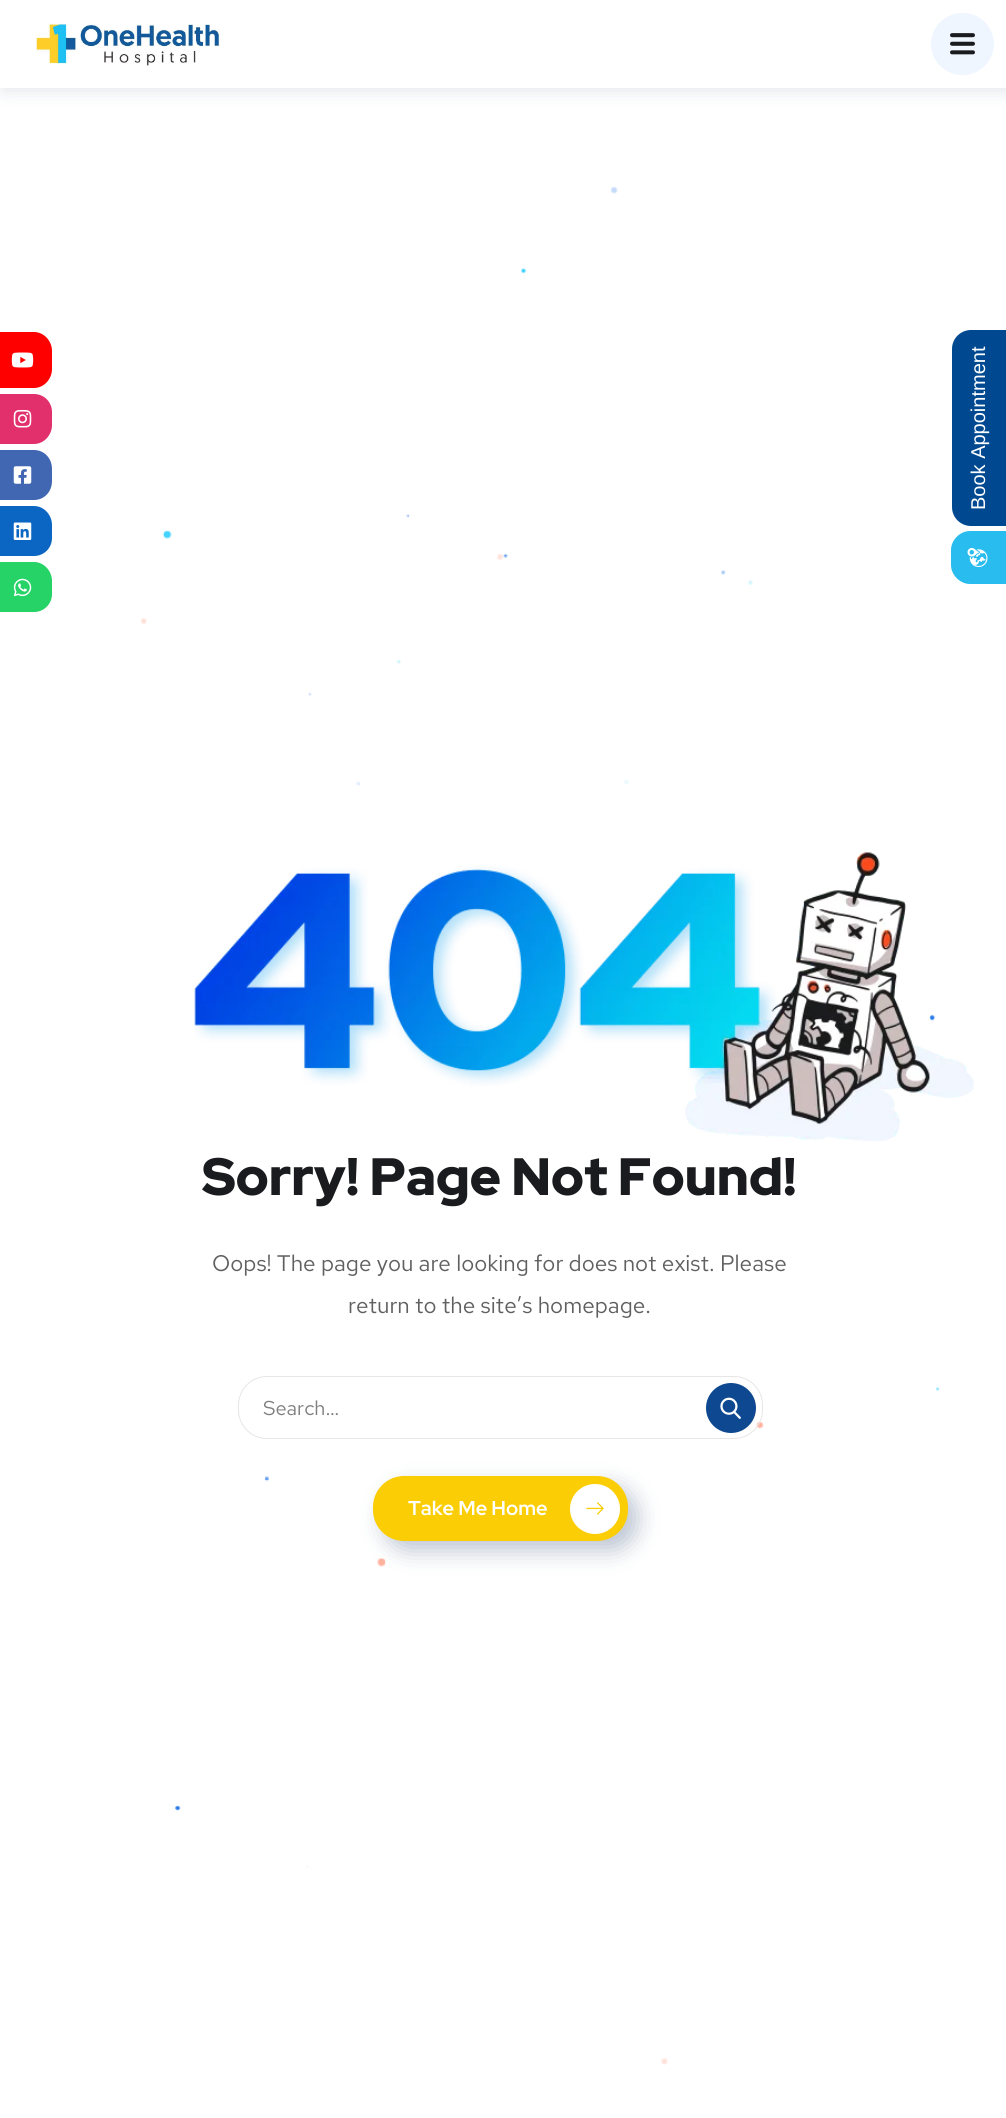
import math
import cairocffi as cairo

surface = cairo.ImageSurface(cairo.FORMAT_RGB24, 1006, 2118)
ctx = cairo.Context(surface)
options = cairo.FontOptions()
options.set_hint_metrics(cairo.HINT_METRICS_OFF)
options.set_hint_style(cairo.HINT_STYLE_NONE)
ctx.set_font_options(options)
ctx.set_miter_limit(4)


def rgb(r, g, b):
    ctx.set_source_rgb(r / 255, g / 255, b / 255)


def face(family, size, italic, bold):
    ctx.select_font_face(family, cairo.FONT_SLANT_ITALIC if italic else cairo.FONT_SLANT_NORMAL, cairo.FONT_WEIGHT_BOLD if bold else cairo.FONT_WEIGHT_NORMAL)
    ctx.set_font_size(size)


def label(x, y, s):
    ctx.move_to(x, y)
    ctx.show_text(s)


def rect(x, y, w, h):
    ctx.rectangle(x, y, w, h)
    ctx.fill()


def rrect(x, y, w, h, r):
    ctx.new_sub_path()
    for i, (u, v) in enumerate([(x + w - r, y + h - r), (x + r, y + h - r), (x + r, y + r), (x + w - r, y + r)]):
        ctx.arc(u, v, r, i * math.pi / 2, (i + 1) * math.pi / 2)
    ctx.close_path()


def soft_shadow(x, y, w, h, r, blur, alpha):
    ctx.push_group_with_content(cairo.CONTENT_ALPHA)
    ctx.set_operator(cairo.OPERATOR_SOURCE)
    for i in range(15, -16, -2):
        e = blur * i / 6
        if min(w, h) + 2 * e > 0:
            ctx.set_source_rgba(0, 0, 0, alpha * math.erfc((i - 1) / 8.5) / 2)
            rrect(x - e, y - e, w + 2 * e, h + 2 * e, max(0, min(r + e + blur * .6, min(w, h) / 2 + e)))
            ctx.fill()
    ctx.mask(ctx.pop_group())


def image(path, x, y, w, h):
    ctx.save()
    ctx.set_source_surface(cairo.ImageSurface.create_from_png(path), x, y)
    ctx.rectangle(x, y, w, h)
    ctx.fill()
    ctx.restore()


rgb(255, 255, 255)
ctx.paint()
rgb(255, 0, 0)
ctx.new_path()
ctx.move_to(-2, 388)
ctx.line_to(-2, 332)
ctx.line_to(34, 332)
ctx.curve_to(44, 332, 52, 341, 52, 351)
ctx.line_to(52, 369)
ctx.curve_to(52, 379, 44, 388, 34, 388)
ctx.close_path()
ctx.fill()
image('image0.png', 11, 352, 23, 16)
rgb(0, 73, 145)
ctx.new_path()
ctx.move_to(952, 507)
ctx.line_to(952, 349)
ctx.curve_to(952, 338, 961, 330, 971, 330)
ctx.line_to(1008, 330)
ctx.line_to(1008, 526)
ctx.line_to(971, 526)
ctx.curve_to(961, 526, 952, 518, 952, 507)
ctx.close_path()
ctx.fill()
face('Liberation Sans', 20, 0, 0)
rgb(255, 255, 255)
ctx.save()
ctx.translate(985, 510)
ctx.rotate(-90 * math.pi / 180)
label(0, 0, 'Book Appointment')
ctx.restore()
rgb(225, 48, 108)
ctx.new_path()
ctx.move_to(-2, 444)
ctx.line_to(-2, 394)
ctx.line_to(34, 394)
ctx.curve_to(44, 394, 52, 402, 52, 412)
ctx.line_to(52, 425)
ctx.curve_to(52, 435, 44, 444, 34, 444)
ctx.close_path()
ctx.fill()
image('image1.png', 13, 409, 19, 19)
rgb(66, 103, 178)
ctx.new_path()
ctx.move_to(-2, 500)
ctx.line_to(-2, 450)
ctx.line_to(34, 450)
ctx.curve_to(44, 450, 52, 458, 52, 469)
ctx.line_to(52, 481)
ctx.curve_to(52, 492, 44, 500, 34, 500)
ctx.close_path()
ctx.fill()
image('image2.png', 13, 466, 19, 18)
rgb(10, 102, 194)
ctx.new_path()
ctx.move_to(-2, 556)
ctx.line_to(-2, 506)
ctx.line_to(34, 506)
ctx.curve_to(44, 506, 52, 515, 52, 525)
ctx.line_to(52, 538)
ctx.curve_to(52, 548, 44, 556, 34, 556)
ctx.close_path()
ctx.fill()
image('image3.png', 13, 522, 19, 18)
rgb(41, 189, 239)
ctx.new_path()
ctx.move_to(951, 565)
ctx.line_to(951, 550)
ctx.curve_to(951, 540, 960, 531, 970, 531)
ctx.line_to(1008, 531)
ctx.line_to(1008, 584)
ctx.line_to(970, 584)
ctx.curve_to(960, 584, 951, 575, 951, 565)
ctx.close_path()
ctx.fill()
image('image4.png', 967, 548, 21, 19)
rgb(37, 211, 102)
ctx.new_path()
ctx.move_to(-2, 612)
ctx.line_to(-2, 562)
ctx.line_to(34, 562)
ctx.curve_to(44, 562, 52, 571, 52, 581)
ctx.line_to(52, 594)
ctx.curve_to(52, 604, 44, 612, 34, 612)
ctx.close_path()
ctx.fill()
image('image5.png', 13, 578, 19, 19)
rgb(42, 67, 113)
soft_shadow(3, 3, 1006, 87, 0, 9.5, 0.15)
rgb(255, 255, 255)
rect(0, 0, 1006, 88)
image('image6.png', 36, 23, 184, 43)
rgb(240, 246, 255)
rrect(931, 13, 63, 62, 31)
ctx.fill()
image('image7.png', 950, 33, 25, 22)
image('image8.png', 141, 186, 799, 1879)
image('image9.png', 194, 852, 780, 290)
face('Red Hat Display Black', 52.5, 0, 0)
rgb(26, 27, 30)
label(202, 1195, 'Sorry! Page Not Found!')
face('Red Hat Text', 22.5, 0, 0)
rgb(96, 96, 96)
label(212, 1271, 'Oops! The page you are looking for does not exist. Please')
label(348, 1313, 'return to the site’s homepage.')
rrect(238.5, 1376.5, 524, 62, 28.5)
rgb(230, 230, 230)
ctx.set_line_width(1)
ctx.stroke()
face('Red Hat Text', 20, 0, 0)
rgb(126, 126, 126)
label(263, 1415, 'Search…')
rgb(13, 72, 144)
ctx.new_path()
ctx.arc(731, 1408, 25, 0, 2 * math.pi)
ctx.fill()
image('image10.png', 720, 1397, 21, 22)
rgb(42, 67, 113)
soft_shadow(383, 1486, 255, 65, 31, 11, 0.3)
rgb(250, 205, 5)
rrect(373, 1476, 255, 65, 31)
ctx.fill()
face('Red Hat Display', 20, 0, 1)
rgb(255, 255, 255)
label(408, 1515, 'Take Me Home')
ctx.new_path()
ctx.arc(595, 1509, 25, 0, 2 * math.pi)
ctx.fill()
image('image11.png', 586, 1502, 18, 13)
surface.write_to_png('render.png')
